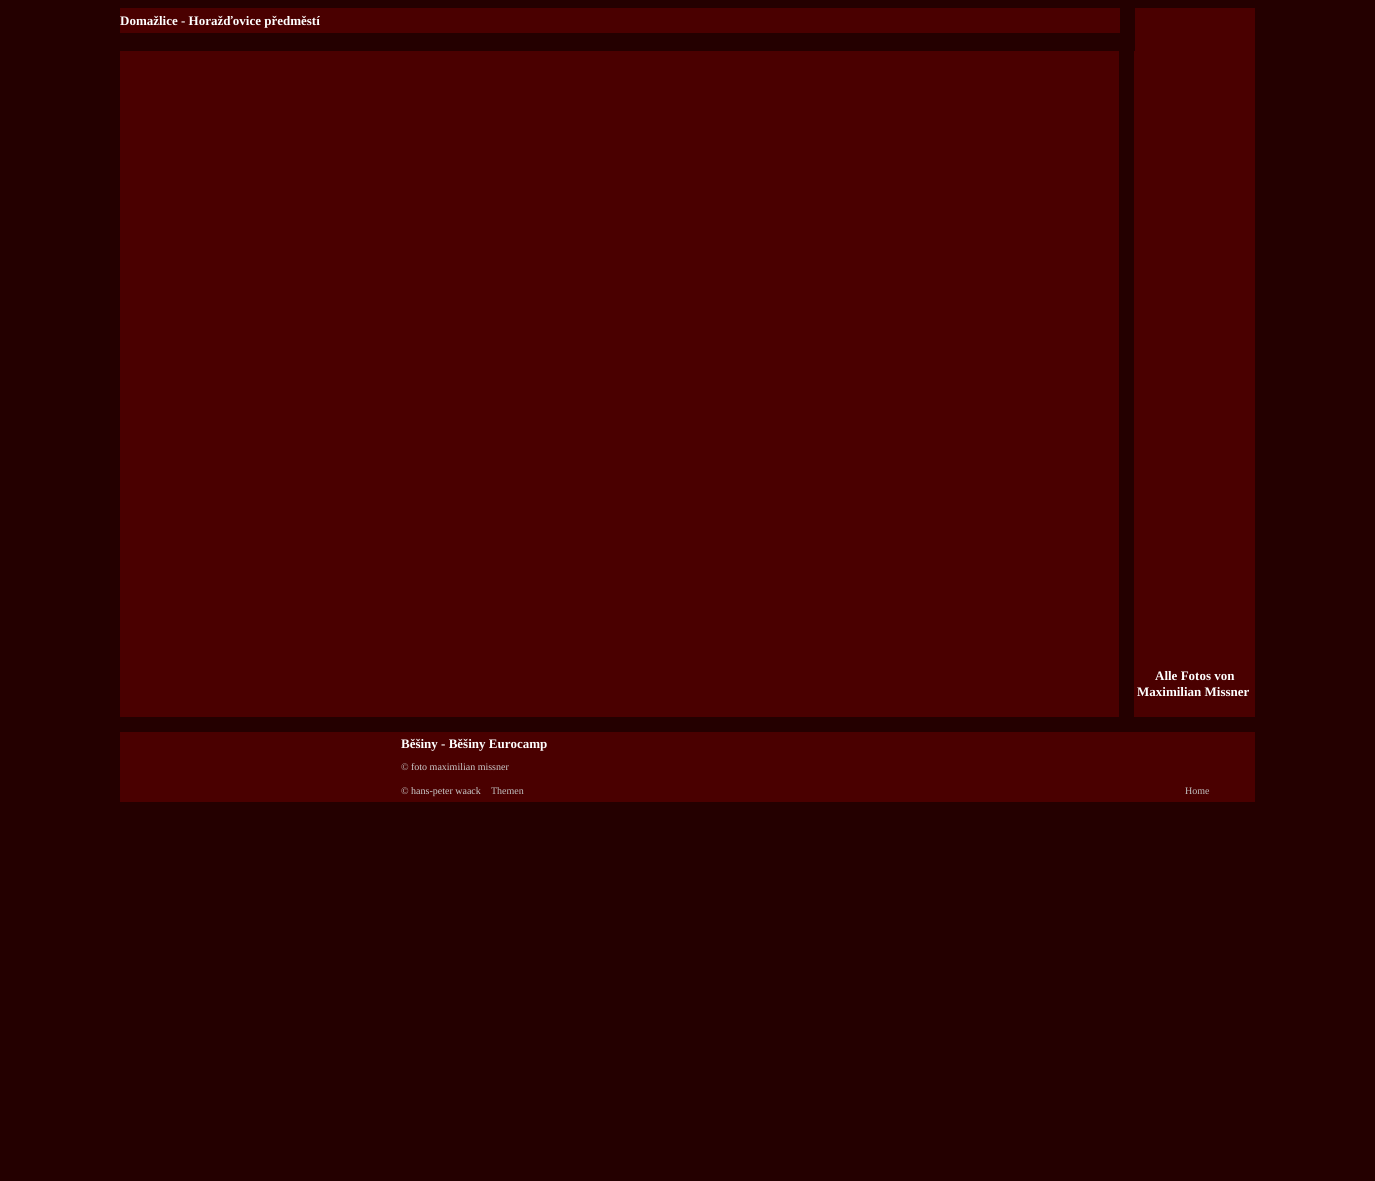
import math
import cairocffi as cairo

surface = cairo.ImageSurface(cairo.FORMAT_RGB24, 1375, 1181)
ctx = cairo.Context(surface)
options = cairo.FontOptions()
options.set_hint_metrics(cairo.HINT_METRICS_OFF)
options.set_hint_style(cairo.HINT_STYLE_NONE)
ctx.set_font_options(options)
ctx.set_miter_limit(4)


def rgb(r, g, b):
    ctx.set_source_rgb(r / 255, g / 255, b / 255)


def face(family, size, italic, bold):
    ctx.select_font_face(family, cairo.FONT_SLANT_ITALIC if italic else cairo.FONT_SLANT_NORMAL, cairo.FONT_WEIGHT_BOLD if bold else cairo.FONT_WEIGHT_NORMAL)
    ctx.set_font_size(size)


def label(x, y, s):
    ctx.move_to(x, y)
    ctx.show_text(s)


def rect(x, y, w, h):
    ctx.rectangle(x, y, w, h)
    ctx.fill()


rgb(36, 0, 0)
ctx.paint()
rgb(74, 0, 0)
rect(120, 8, 1000, 25)
face('Liberation Serif', 13, 0, 1)
rgb(255, 255, 255)
label(120, 25, 'Domažlice - Horažďovice předměstí')
rgb(74, 0, 0)
rect(1135, 8, 120, 43)
rect(120, 51, 999, 666)
rect(1134, 51, 121, 666)
rgb(255, 255, 255)
label(1155, 680, 'Alle Fotos von')
label(1137, 696, 'Maximilian Missner')
rgb(74, 0, 0)
rect(120, 732, 281, 70)
rect(401, 732, 370, 70)
rgb(255, 255, 255)
label(401, 748, 'Běšiny - Běšiny Eurocamp')
rgb(74, 0, 0)
rect(771, 732, 368, 70)
face('Liberation Serif', 10, 0, 0)
rgb(193, 193, 193)
label(401, 770, '©')
rgb(204, 204, 204)
label(411, 770, 'foto maximilian missner')
label(401, 794, '© hans-peter waack')
rgb(193, 193, 193)
label(491, 794, 'Themen')
rgb(74, 0, 0)
rect(1139, 732, 116, 70)
rgb(193, 193, 193)
label(1185, 794, 'Home')
surface.write_to_png('render.png')
